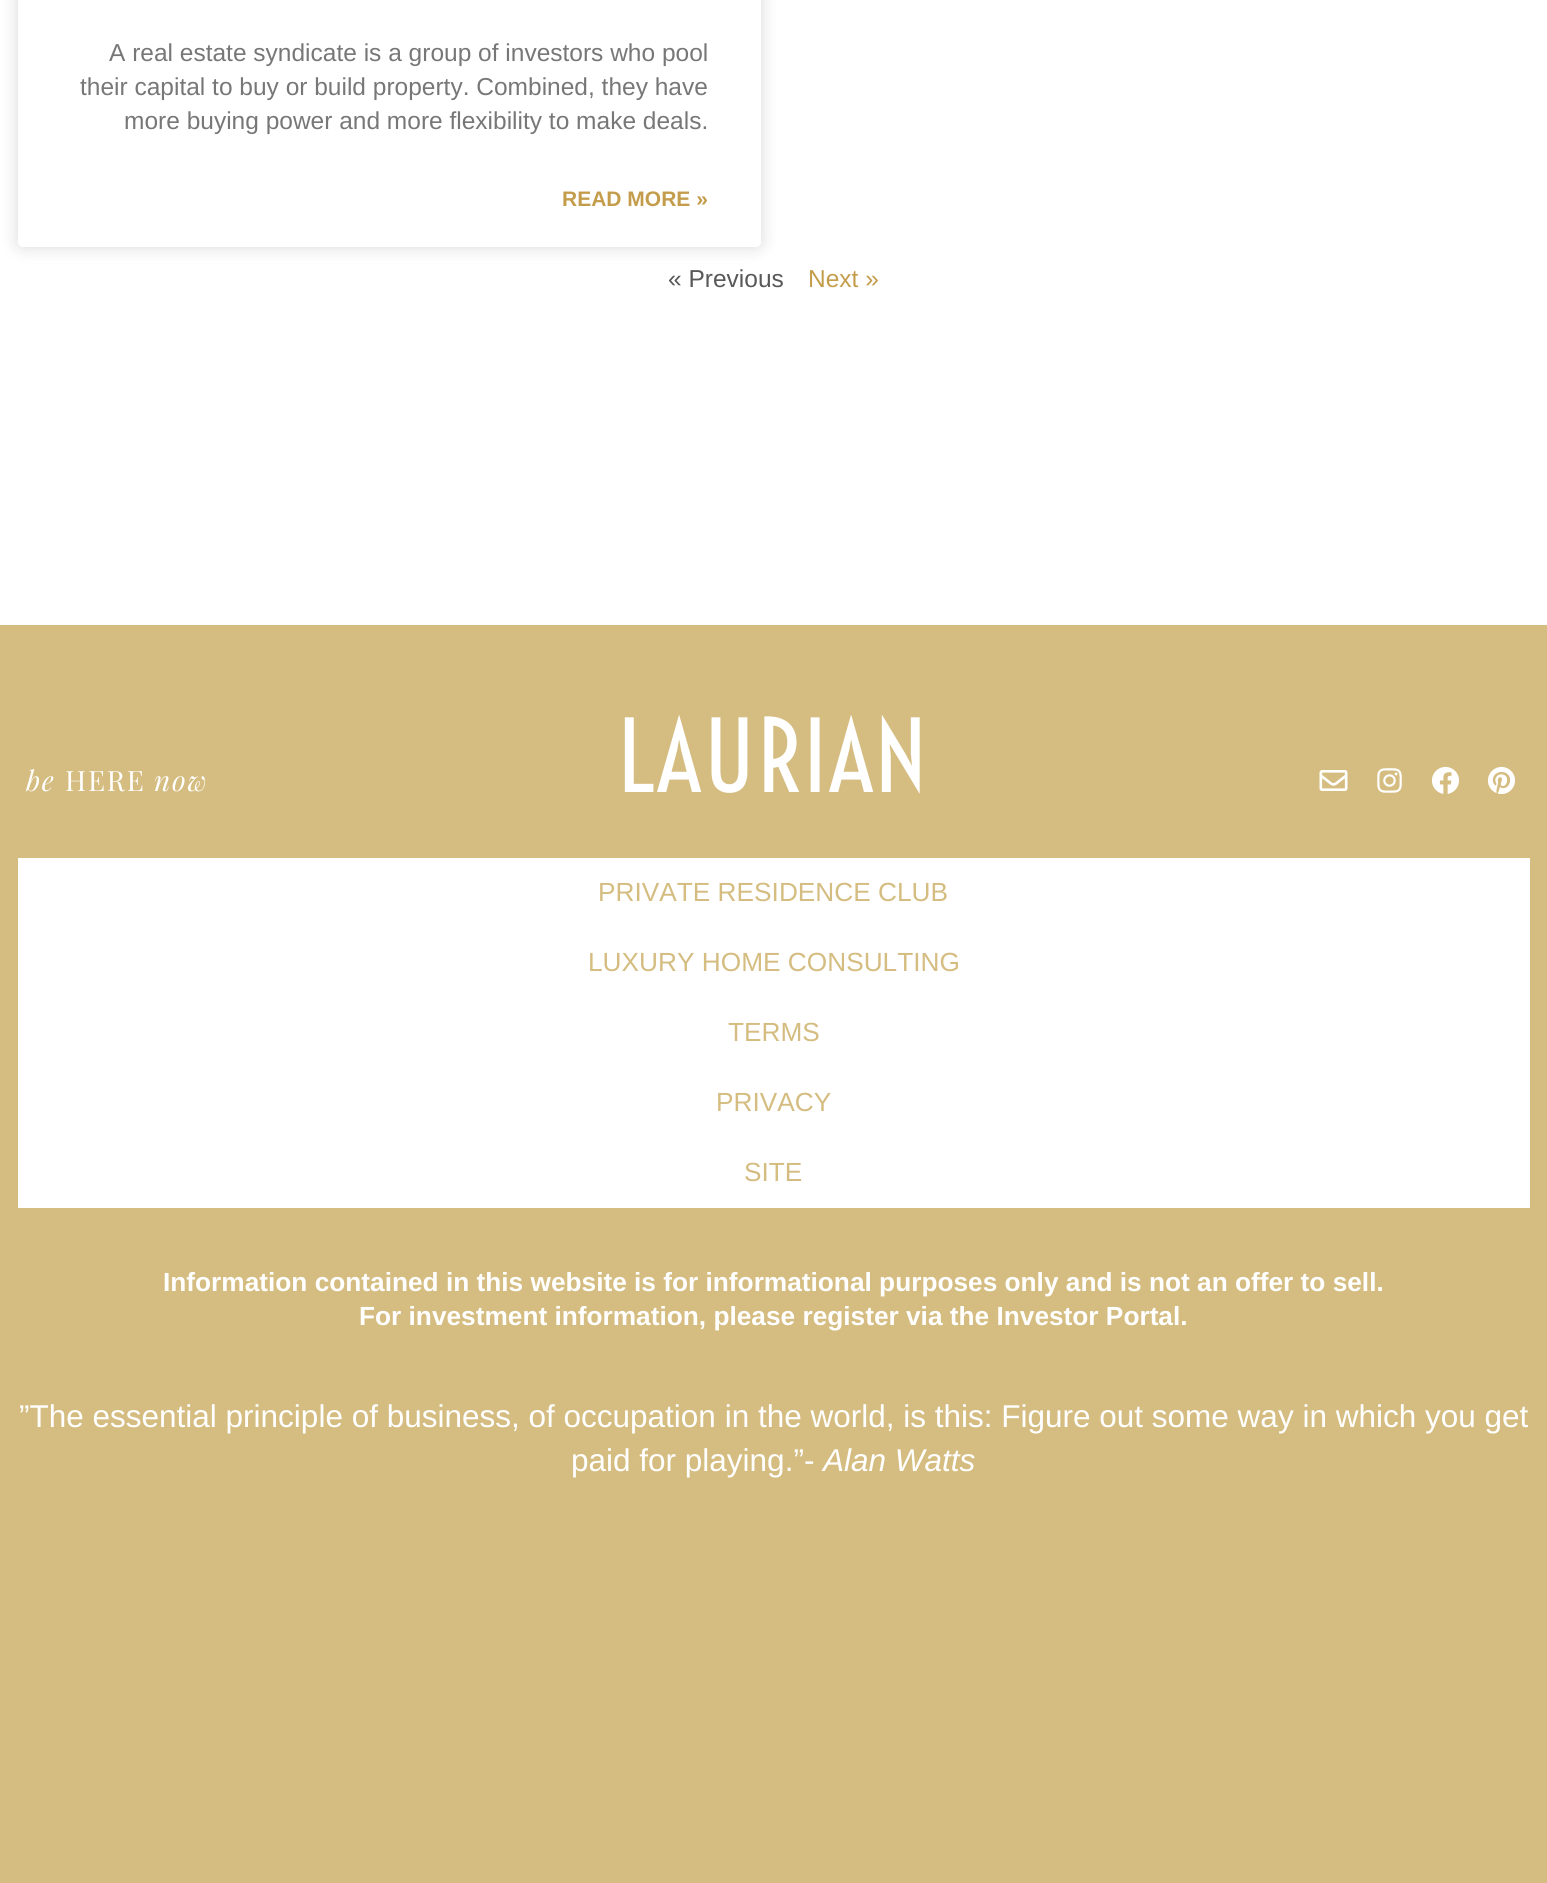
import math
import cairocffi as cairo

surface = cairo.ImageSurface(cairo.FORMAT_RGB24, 1547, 1883)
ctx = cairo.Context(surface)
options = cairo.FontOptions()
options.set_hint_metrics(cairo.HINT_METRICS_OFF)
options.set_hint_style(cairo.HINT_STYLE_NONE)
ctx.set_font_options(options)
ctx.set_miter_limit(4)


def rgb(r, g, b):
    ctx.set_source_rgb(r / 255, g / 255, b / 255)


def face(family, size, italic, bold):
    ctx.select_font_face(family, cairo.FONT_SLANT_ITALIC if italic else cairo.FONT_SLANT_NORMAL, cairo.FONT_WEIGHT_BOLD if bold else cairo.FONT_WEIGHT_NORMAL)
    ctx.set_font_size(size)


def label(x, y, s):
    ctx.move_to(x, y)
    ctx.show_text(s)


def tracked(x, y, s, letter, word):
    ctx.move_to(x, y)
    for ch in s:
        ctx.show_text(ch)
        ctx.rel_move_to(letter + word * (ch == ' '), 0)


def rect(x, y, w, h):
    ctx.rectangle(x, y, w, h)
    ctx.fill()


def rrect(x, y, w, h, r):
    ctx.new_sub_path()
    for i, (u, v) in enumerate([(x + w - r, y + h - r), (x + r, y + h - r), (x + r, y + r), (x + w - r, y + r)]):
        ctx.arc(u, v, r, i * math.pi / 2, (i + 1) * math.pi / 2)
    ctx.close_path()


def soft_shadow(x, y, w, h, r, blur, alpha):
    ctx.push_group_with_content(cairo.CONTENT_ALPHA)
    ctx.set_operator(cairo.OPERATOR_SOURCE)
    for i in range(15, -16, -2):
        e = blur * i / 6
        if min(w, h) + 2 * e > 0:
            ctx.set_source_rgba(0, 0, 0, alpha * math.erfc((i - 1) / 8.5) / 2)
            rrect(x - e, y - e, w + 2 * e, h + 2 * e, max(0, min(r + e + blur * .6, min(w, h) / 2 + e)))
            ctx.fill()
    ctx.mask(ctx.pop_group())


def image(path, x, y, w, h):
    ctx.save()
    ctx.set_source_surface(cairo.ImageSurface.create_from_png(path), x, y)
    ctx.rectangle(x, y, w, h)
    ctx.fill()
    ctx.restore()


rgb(255, 255, 255)
ctx.paint()
rgb(0, 0, 0)
soft_shadow(18, -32, 743, 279, 5, 9, 0.15)
rgb(255, 255, 255)
rrect(18, -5, 743, 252, 5)
ctx.fill()
face('Liberation Sans', 24.5, 0, 0)
rgb(119, 119, 119)
label(109, 61, 'A real estate syndicate is a group of investors who pool')
label(80, 95, 'their capital to buy or build property. Combined, they have')
label(124, 129, 'more buying power and more flexibility to make deals.')
face('Liberation Sans', 21, 0, 1)
rgb(196, 157, 76)
label(562, 206, 'READ MORE »')
face('Liberation Sans', 24.5, 0, 0)
rgb(89, 88, 88)
label(668, 287, '« Previous')
rgb(196, 157, 76)
label(808, 287, 'Next »')
rgb(213, 189, 129)
rect(0, 625, 1547, 1258)
face('Playfair Display', 28, 1, 0)
rgb(255, 255, 255)
tracked(26, 791, 'be', 1.75, 0)
face('Playfair Display', 28, 0, 0)
tracked(65, 791, 'HERE', 1.75, 0)
face('Playfair Display', 28, 1, 0)
tracked(154, 791, 'now', 1.75, 0)
face('Voltaire', 96, 0, 0)
tracked(618, 792, 'LAURIAN', 1.75, 0)
image('image0.png', 1319, 770, 29, 21)
image('image1.png', 1377, 768, 25, 25)
image('image2.png', 1431, 766, 29, 28)
image('image3.png', 1487, 766, 29, 29)
rect(18, 858, 1512, 350)
face('Liberation Sans', 26.25, 0, 0)
rgb(213, 189, 129)
label(598, 901, 'PRIVATE RESIDENCE CLUB')
label(588, 971, 'LUXURY HOME CONSULTING')
label(728, 1041, 'TERMS')
label(716, 1111, 'PRIVACY')
label(744, 1181, 'SITE')
face('Liberation Sans', 26.25, 0, 1)
rgb(255, 255, 255)
label(163, 1291, 'Information contained in this website is for informational purposes only and is not an offer to sell.')
label(359, 1325, 'For investment information, please register via the Investor Portal.')
face('Liberation Sans', 31.5, 0, 0)
label(19, 1427, '”The essential principle of business, of occupation in the world, is this: Figure out some way in which you get')
label(571, 1471, 'paid for playing.”-')
face('Liberation Sans', 31.5, 1, 0)
label(823, 1471, 'Alan Watts')
surface.write_to_png('render.png')
